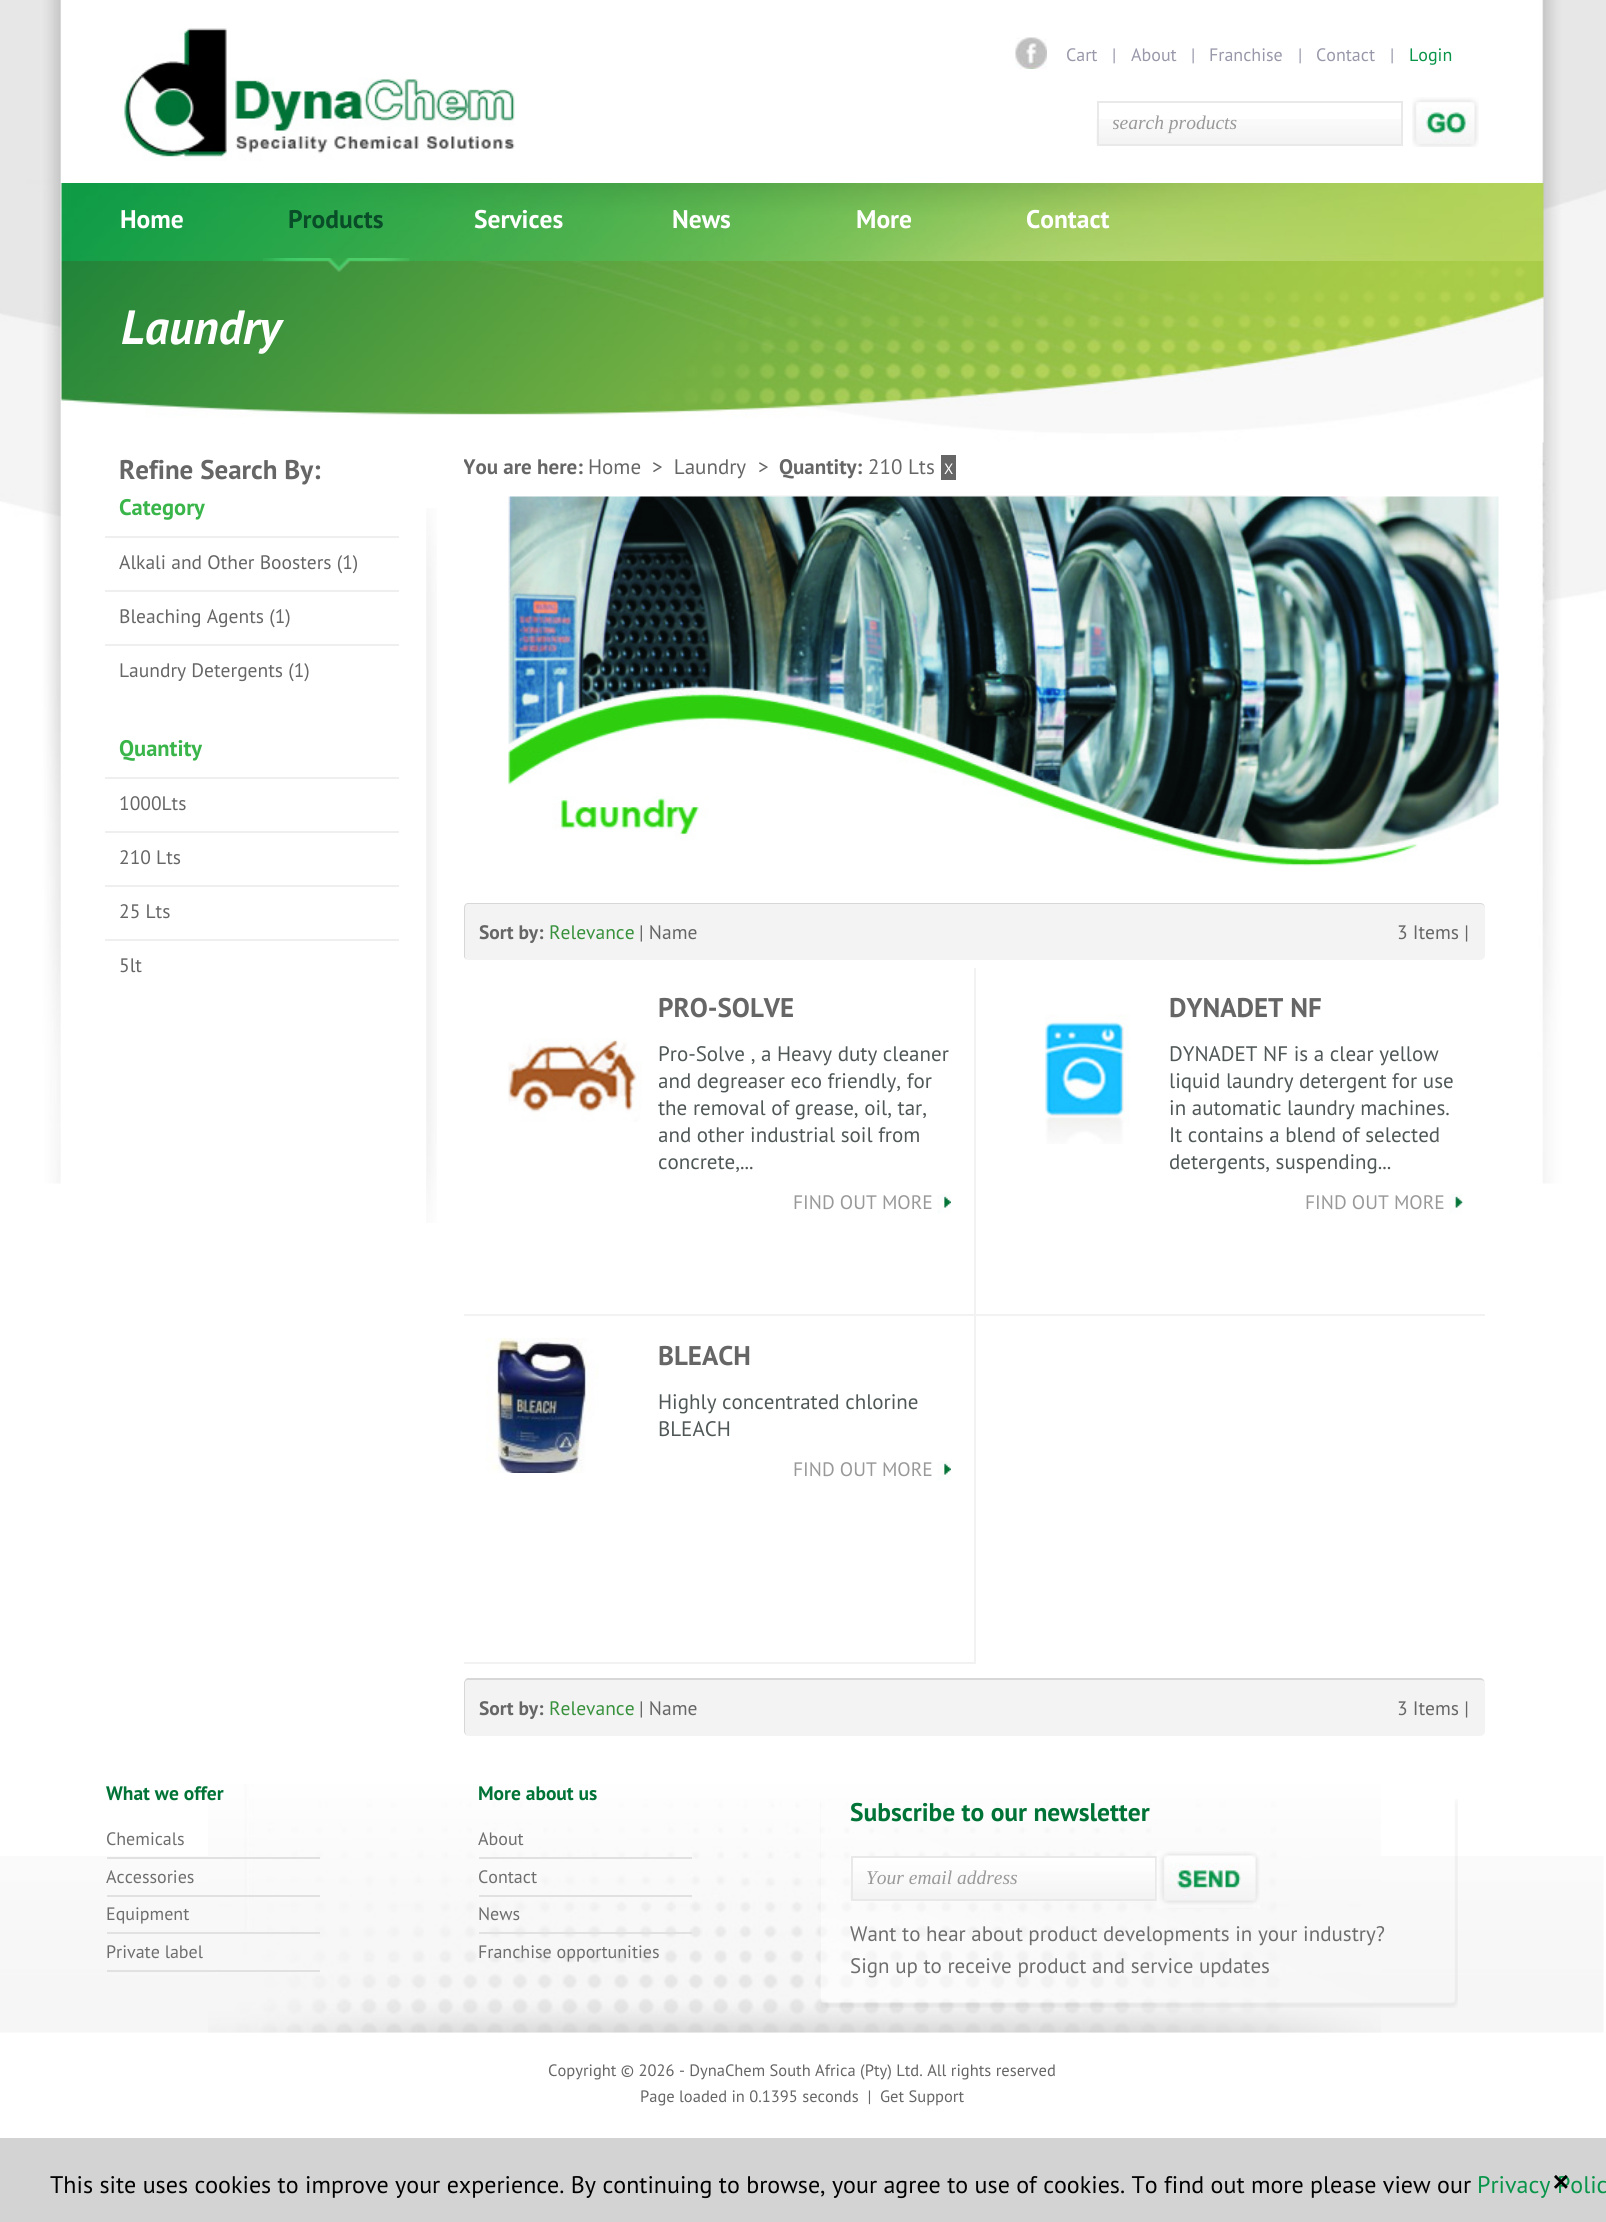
import math
import cairocffi as cairo

surface = cairo.ImageSurface(cairo.FORMAT_RGB24, 1606, 2222)
ctx = cairo.Context(surface)
options = cairo.FontOptions()
options.set_hint_metrics(cairo.HINT_METRICS_OFF)
options.set_hint_style(cairo.HINT_STYLE_NONE)
ctx.set_font_options(options)
ctx.set_miter_limit(4)


def rgb(r, g, b):
    ctx.set_source_rgb(r / 255, g / 255, b / 255)


def face(family, size, italic, bold):
    ctx.select_font_face(family, cairo.FONT_SLANT_ITALIC if italic else cairo.FONT_SLANT_NORMAL, cairo.FONT_WEIGHT_BOLD if bold else cairo.FONT_WEIGHT_NORMAL)
    ctx.set_font_size(size)


def label(x, y, s):
    ctx.move_to(x, y)
    ctx.show_text(s)


def rect(x, y, w, h):
    ctx.rectangle(x, y, w, h)
    ctx.fill()


def rrect(x, y, w, h, r):
    ctx.new_sub_path()
    for i, (u, v) in enumerate([(x + w - r, y + h - r), (x + r, y + h - r), (x + r, y + r), (x + w - r, y + r)]):
        ctx.arc(u, v, r, i * math.pi / 2, (i + 1) * math.pi / 2)
    ctx.close_path()


def image(path, x, y, w, h):
    ctx.save()
    ctx.set_source_surface(cairo.ImageSurface.create_from_png(path), x, y)
    ctx.rectangle(x, y, w, h)
    ctx.fill()
    ctx.restore()


rgb(255, 255, 255)
ctx.paint()
image('image0.png', 0, 0, 1606, 1184)
image('image1.png', 120, 28, 395, 133)
image('image2.png', 1015, 37, 32, 32)
face('PT Sans', 18, 0, 0)
rgb(152, 152, 170)
label(1066, 61, 'Cart')
label(1112, 61, '|')
label(1131, 61, 'About')
label(1191, 61, '|')
label(1209, 61, 'Franchise')
label(1298, 61, '|')
label(1316, 61, 'Contact')
label(1390, 61, '|')
rgb(8, 148, 73)
label(1409, 61, 'Login')
image('image3.png', 1096, 119, 305, 25)
ctx.rectangle(1098, 102, 304, 43)
rgb(233, 233, 233)
ctx.stroke()
ctx.save()
ctx.rectangle(1113, 111, 288, 24)
ctx.clip()
face('Liberation Serif', 19.5, 1, 0)
rgb(153, 153, 153)
label(1112, 129, 'search products')
ctx.restore()
image('image4.png', 1412, 97, 67, 50)
image('image5.png', 61, 183, 1483, 78)
face('PT Sans', 25.5, 0, 1)
rgb(255, 255, 255)
label(120, 228, 'Home')
image('image7.png', 61, 261, 1483, 182)
image('image6.png', 263, 258, 147, 14)
rgb(8, 77, 40)
label(288, 228, 'Products')
rgb(255, 255, 255)
label(474, 228, 'Services')
label(672, 228, 'News')
label(856, 228, 'More')
label(1026, 228, 'Contact')
face('PT Sans', 48, 1, 1)
label(121, 344, 'Laundry')
face('PT Sans', 27, 0, 1)
rgb(102, 102, 102)
label(119, 479, 'Refine Search By:')
face('PT Sans', 22.5, 0, 1)
rgb(57, 181, 74)
label(119, 515, 'Category')
rgb(239, 239, 239)
rect(105, 536, 294, 2)
face('PT Sans', 19.5, 0, 0)
rgb(102, 102, 102)
label(119, 569, 'Alkali and Other Boosters (1)')
rgb(239, 239, 239)
rect(105, 590, 294, 2)
rgb(102, 102, 102)
label(119, 623, 'Bleaching Agents (1)')
rgb(239, 239, 239)
rect(105, 644, 294, 2)
rgb(102, 102, 102)
label(119, 677, 'Laundry Detergents (1)')
face('PT Sans', 22.5, 0, 1)
rgb(57, 181, 74)
label(119, 756, 'Quantity')
rgb(239, 239, 239)
rect(105, 777, 294, 2)
face('PT Sans', 19.5, 0, 0)
rgb(102, 102, 102)
label(119, 810, '1000Lts')
rgb(239, 239, 239)
rect(105, 831, 294, 2)
rgb(102, 102, 102)
label(119, 864, '210 Lts')
rgb(239, 239, 239)
rect(105, 885, 294, 2)
rgb(102, 102, 102)
label(119, 918, '25 Lts')
rgb(239, 239, 239)
rect(105, 939, 294, 2)
rgb(102, 102, 102)
label(119, 972, '5lt')
image('image8.png', 426, 508, 11, 715)
ctx.save()
ctx.rectangle(464, 452, 1035, 1299)
ctx.clip()
face('PT Sans', 21, 0, 1)
label(463, 474, 'You are here:')
ctx.restore()
face('PT Sans', 21, 0, 0)
label(588, 474, 'Home')
label(652, 474, '>  Laundry')
label(758, 474, '>')
face('PT Sans', 21, 0, 1)
label(779, 474, 'Quantity:')
face('PT Sans', 21, 0, 0)
label(868, 474, '210 Lts')
rect(941, 455, 15, 25)
face('PT Sans', 15, 0, 0)
rgb(255, 255, 255)
label(944, 474, 'X')
image('image9.png', 661, 495, 622, 2)
image('image10.png', 508, 496, 991, 370)
rgb(243, 243, 243)
rrect(464, 903, 1021, 57, 5)
ctx.fill()
rgb(215, 215, 215)
ctx.set_fill_rule(cairo.FILL_RULE_EVEN_ODD)
ctx.new_path()
ctx.move_to(468, 903)
ctx.line_to(1480, 903)
ctx.curve_to(1483, 903, 1485, 905, 1485, 908)
ctx.line_to(1485, 956)
ctx.curve_to(1485, 958, 1483, 960, 1480, 960)
ctx.line_to(468, 960)
ctx.curve_to(466, 960, 464, 958, 464, 956)
ctx.line_to(464, 908)
ctx.curve_to(464, 905, 466, 903, 468, 903)
ctx.close_path()
ctx.move_to(468, 904)
ctx.line_to(1480, 904)
ctx.curve_to(1483, 904, 1485, 906, 1485, 908)
ctx.line_to(1485, 956)
ctx.curve_to(1485, 958, 1483, 960, 1480, 960)
ctx.line_to(468, 960)
ctx.curve_to(466, 960, 465, 958, 465, 956)
ctx.line_to(465, 908)
ctx.curve_to(465, 906, 466, 904, 468, 904)
ctx.close_path()
ctx.fill()
face('PT Sans', 19.5, 0, 1)
rgb(102, 102, 102)
label(479, 939, 'Sort by:')
face('PT Sans', 19.5, 0, 0)
rgb(56, 145, 60)
label(549, 939, 'Relevance')
rgb(102, 102, 102)
label(639, 939, '| Name')
label(1397, 939, '3 Items |')
rgb(242, 242, 242)
rect(974, 968, 2, 696)
rect(464, 1314, 1021, 2)
image('image11.png', 508, 1038, 134, 84)
face('PT Sans', 27, 0, 1)
rgb(102, 102, 102)
label(658, 1017, 'PRO-SOLVE')
face('PT Sans', 21, 0, 0)
rgb(80, 87, 87)
label(658, 1061, 'Pro-Solve , a Heavy duty cleaner')
ctx.save()
ctx.set_fill_rule(cairo.FILL_RULE_WINDING)
ctx.rectangle(659, 989, 292, 226)
ctx.clip()
label(658, 1088, 'and degreaser eco friendly, for')
ctx.restore()
label(658, 1115, 'the removal of grease, oil, tar,')
ctx.save()
ctx.set_fill_rule(cairo.FILL_RULE_WINDING)
ctx.rectangle(659, 989, 292, 226)
ctx.clip()
label(658, 1142, 'and other industrial soil from')
label(658, 1169, 'concrete,...')
ctx.restore()
face('PT Sans', 19.5, 0, 0)
rgb(153, 153, 153)
label(793, 1209, 'FIND OUT MORE')
image('image12.png', 937, 1194, 14, 20)
image('image13.png', 1045, 1014, 85, 130)
face('PT Sans', 27, 0, 1)
rgb(102, 102, 102)
label(1169, 1017, 'DYNADET NF')
face('PT Sans', 21, 0, 0)
rgb(80, 87, 87)
label(1169, 1061, 'DYNADET NF is a clear yellow')
label(1169, 1088, 'liquid laundry detergent for use')
label(1169, 1115, 'in automatic laundry machines.')
label(1169, 1142, 'It contains a blend of selected')
label(1169, 1169, 'detergents, suspending...')
face('PT Sans', 19.5, 0, 0)
rgb(153, 153, 153)
label(1305, 1209, 'FIND OUT MORE')
image('image14.png', 1449, 1194, 14, 20)
rgb(242, 242, 242)
rect(464, 1662, 511, 2)
image('image15.png', 486, 1338, 113, 135)
face('PT Sans', 27, 0, 1)
rgb(102, 102, 102)
label(658, 1365, 'BLEACH')
face('PT Sans', 21, 0, 0)
rgb(80, 87, 87)
label(658, 1409, 'Highly concentrated chlorine')
label(658, 1436, 'BLEACH')
face('PT Sans', 19.5, 0, 0)
rgb(153, 153, 153)
label(793, 1476, 'FIND OUT MORE')
image('image12.png', 937, 1461, 14, 20)
rgb(243, 243, 243)
rrect(464, 1679, 1021, 57, 5)
ctx.fill()
rgb(215, 215, 215)
ctx.new_path()
ctx.move_to(468, 1678)
ctx.line_to(1480, 1678)
ctx.curve_to(1483, 1678, 1485, 1681, 1485, 1683)
ctx.line_to(1485, 1731)
ctx.curve_to(1485, 1733, 1483, 1736, 1480, 1736)
ctx.line_to(468, 1736)
ctx.curve_to(466, 1736, 464, 1733, 464, 1731)
ctx.line_to(464, 1683)
ctx.curve_to(464, 1681, 466, 1678, 468, 1678)
ctx.close_path()
ctx.move_to(468, 1680)
ctx.line_to(1480, 1680)
ctx.curve_to(1483, 1680, 1485, 1681, 1485, 1683)
ctx.line_to(1485, 1731)
ctx.curve_to(1485, 1733, 1483, 1736, 1480, 1736)
ctx.line_to(468, 1736)
ctx.curve_to(466, 1736, 465, 1733, 465, 1731)
ctx.line_to(465, 1683)
ctx.curve_to(465, 1681, 466, 1680, 468, 1680)
ctx.close_path()
ctx.fill()
face('PT Sans', 19.5, 0, 1)
rgb(102, 102, 102)
label(479, 1715, 'Sort by:')
face('PT Sans', 19.5, 0, 0)
rgb(56, 145, 60)
label(549, 1715, 'Relevance')
rgb(102, 102, 102)
label(639, 1715, '| Name')
label(1397, 1715, '3 Items |')
image('image16.png', 0, 1856, 1604, 177)
image('image17.png', 208, 1784, 1173, 249)
face('PT Sans', 19.5, 0, 1)
rgb(0, 115, 54)
label(106, 1800, 'What we offer')
rgb(225, 225, 225)
rect(107, 1857, 213, 2)
face('PT Sans', 18, 0, 0)
rgb(110, 110, 110)
label(106, 1845, 'Chemicals')
rgb(225, 225, 225)
rect(107, 1895, 213, 2)
rgb(110, 110, 110)
label(106, 1883, 'Accessories')
rgb(225, 225, 225)
rect(107, 1932, 213, 2)
rgb(110, 110, 110)
label(106, 1920, 'Equipment')
rgb(225, 225, 225)
rect(107, 1970, 213, 2)
rgb(110, 110, 110)
label(106, 1958, 'Private label')
face('PT Sans', 19.5, 0, 1)
rgb(0, 115, 54)
label(478, 1800, 'More about us')
rgb(225, 225, 225)
rect(479, 1857, 213, 2)
face('PT Sans', 18, 0, 0)
rgb(110, 110, 110)
label(478, 1845, 'About')
rgb(225, 225, 225)
rect(479, 1895, 213, 2)
rgb(110, 110, 110)
label(478, 1883, 'Contact')
rgb(225, 225, 225)
rect(479, 1932, 213, 2)
rgb(110, 110, 110)
label(478, 1920, 'News')
label(478, 1958, 'Franchise opportunities')
image('image18.png', 820, 1799, 638, 209)
face('PT Sans', 25.5, 0, 1)
rgb(0, 115, 54)
label(850, 1821, 'Subscribe to our newsletter')
image('image19.png', 850, 1857, 305, 42)
ctx.rectangle(852, 1857, 304, 43)
rgb(233, 233, 233)
ctx.stroke()
face('Liberation Serif', 19.5, 1, 0)
rgb(153, 153, 153)
label(866, 1884, 'Your email address')
image('image20.png', 1156, 1851, 104, 58)
face('PT Sans', 21, 0, 0)
rgb(110, 110, 110)
label(850, 1941, 'Want to hear about product developments in your industry?')
label(850, 1973, 'Sign up to receive product and service updates')
face('PT Sans', 16.5, 0, 0)
rgb(102, 102, 102)
label(548, 2076, 'Copyright © 2026 - DynaChem South Africa (Pty) Ltd. All rights reserved')
label(640, 2102, 'Page loaded in 0.1395 seconds  |')
label(880, 2102, 'Get Support')
rgb(211, 211, 211)
rect(0, 2138, 1606, 84)
face('PT Sans', 24, 0, 0)
rgb(8, 148, 73)
label(1477, 2193, 'Privacy Polic')
face('PT Sans', 39, 0, 0)
rgb(0, 0, 0)
label(1551, 2195, '×')
face('PT Sans', 24, 0, 0)
label(50, 2193, 'This site uses cookies to improve your experience. By continuing to browse, your agree to use of cookies. To find out more please view our')
surface.write_to_png('render.png')
